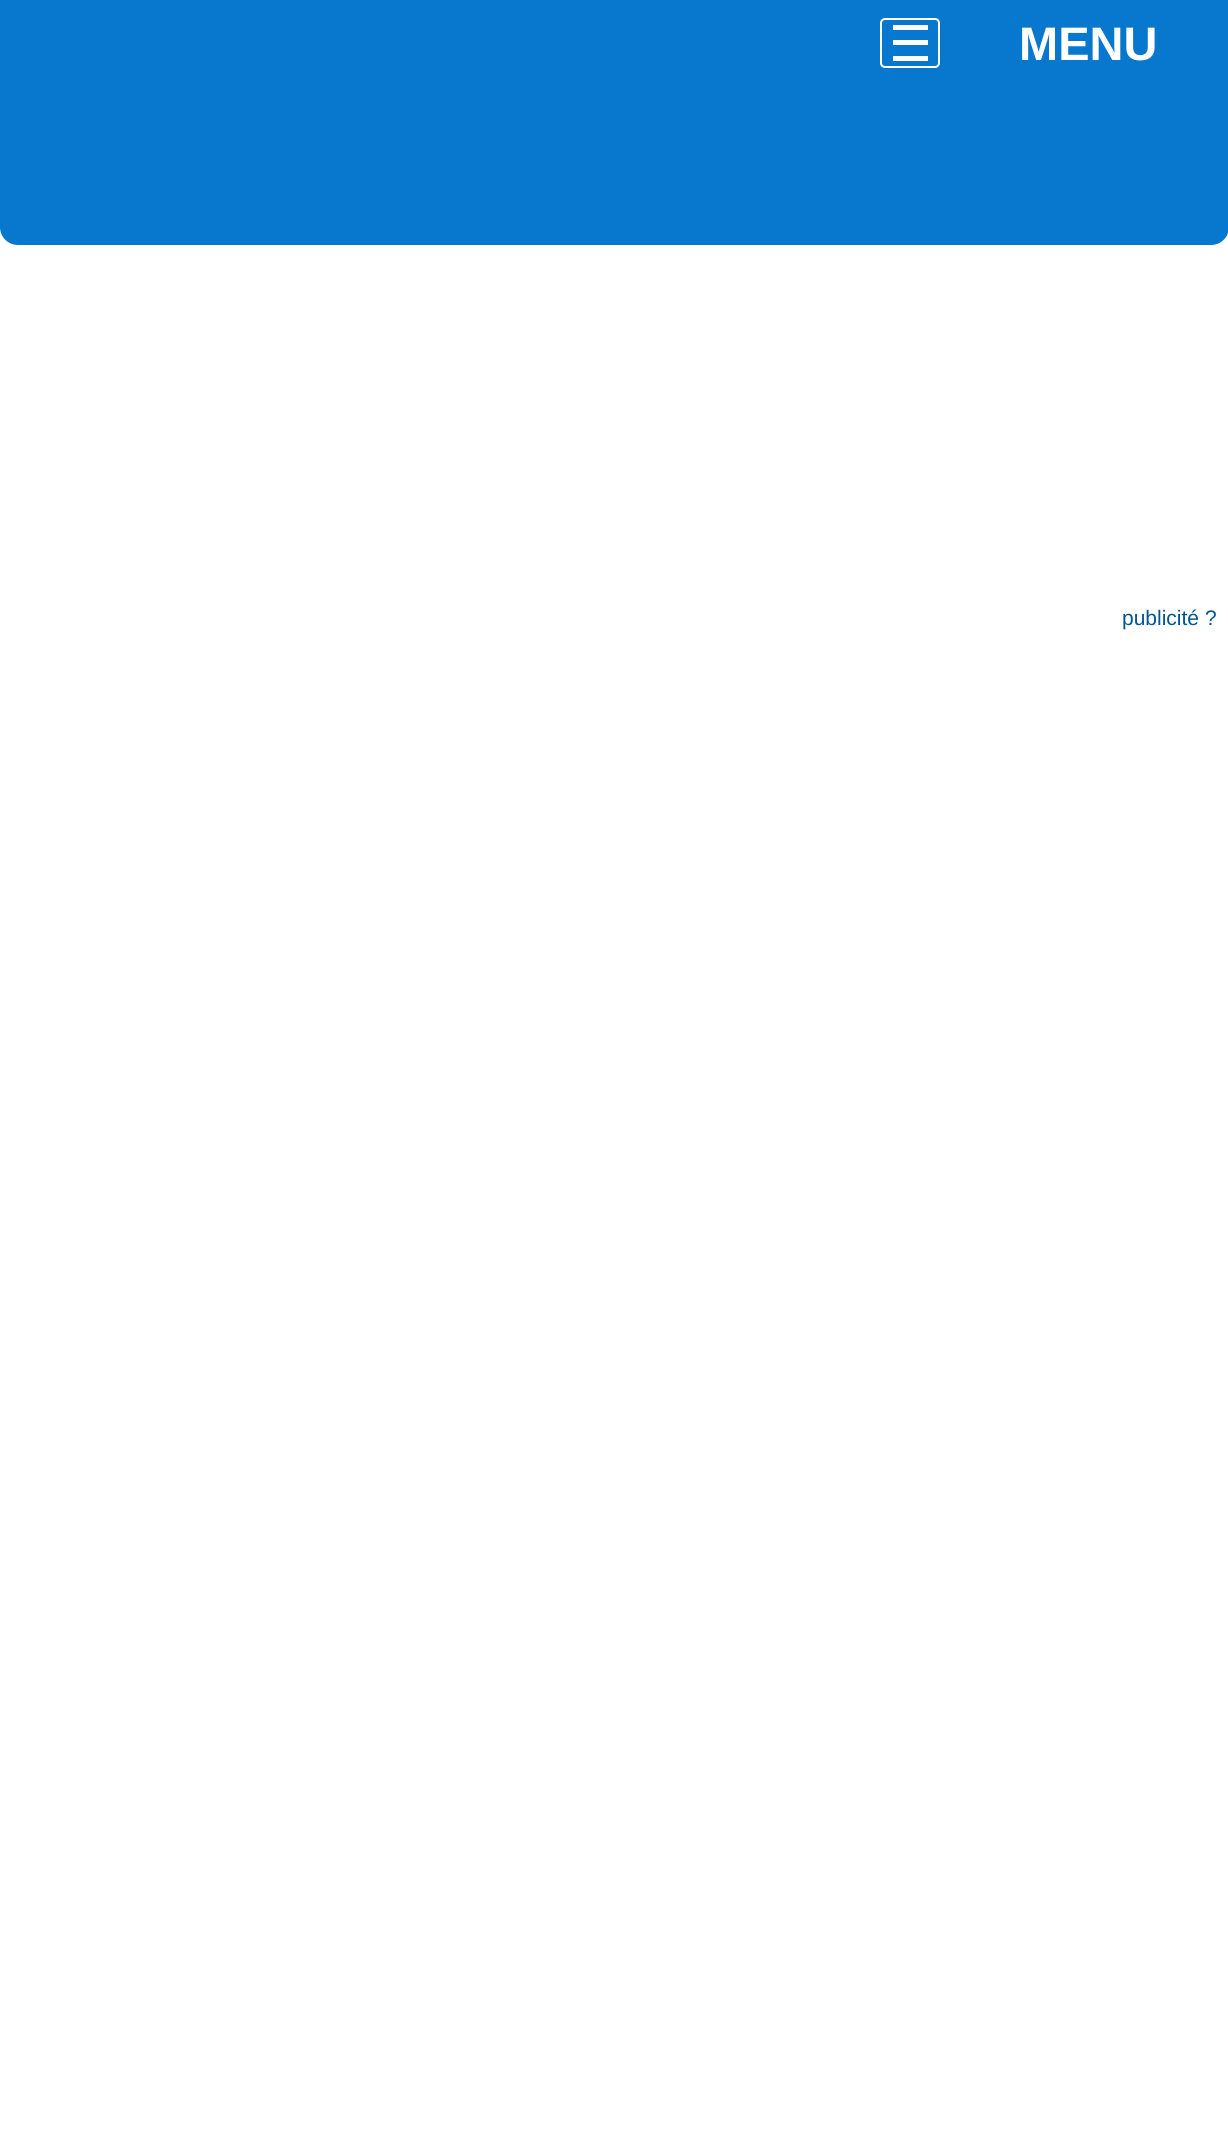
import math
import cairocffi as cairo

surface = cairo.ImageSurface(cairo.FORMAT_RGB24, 1228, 2136)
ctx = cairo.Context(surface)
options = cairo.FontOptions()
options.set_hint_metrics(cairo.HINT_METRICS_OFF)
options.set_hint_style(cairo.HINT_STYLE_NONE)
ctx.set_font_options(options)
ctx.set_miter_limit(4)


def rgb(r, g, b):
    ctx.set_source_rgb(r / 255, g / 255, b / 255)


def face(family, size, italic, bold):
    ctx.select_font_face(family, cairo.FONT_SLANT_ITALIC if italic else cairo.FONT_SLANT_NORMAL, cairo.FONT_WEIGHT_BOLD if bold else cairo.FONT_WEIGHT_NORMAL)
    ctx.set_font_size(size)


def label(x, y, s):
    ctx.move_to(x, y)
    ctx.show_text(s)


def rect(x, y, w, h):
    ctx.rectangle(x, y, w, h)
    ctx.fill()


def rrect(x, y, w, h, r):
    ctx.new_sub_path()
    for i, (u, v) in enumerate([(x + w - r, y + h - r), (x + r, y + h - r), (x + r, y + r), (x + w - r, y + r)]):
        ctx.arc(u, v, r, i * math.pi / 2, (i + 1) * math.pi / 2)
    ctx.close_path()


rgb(255, 255, 255)
ctx.paint()
rgb(8, 120, 206)
rect(0, 0, 1228, 88)
rrect(881, 19, 58, 48, 4)
rgb(255, 255, 255)
ctx.stroke()
rect(893, 25, 35, 5)
rect(893, 40, 35, 5)
rect(893, 56, 35, 5)
face('Liberation Sans', 47, 0, 1)
label(1019, 60, 'MENU')
rgb(8, 120, 206)
ctx.new_path()
ctx.move_to(0, 88)
ctx.line_to(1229, 88)
ctx.line_to(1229, 227)
ctx.curve_to(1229, 237, 1221, 245, 1211, 245)
ctx.line_to(18, 245)
ctx.curve_to(8, 245, 0, 237, 0, 227)
ctx.close_path()
ctx.fill()
face('Liberation Sans', 21, 0, 0)
rgb(0, 87, 144)
label(1122, 625, 'publicité ?')
surface.write_to_png('render.png')
